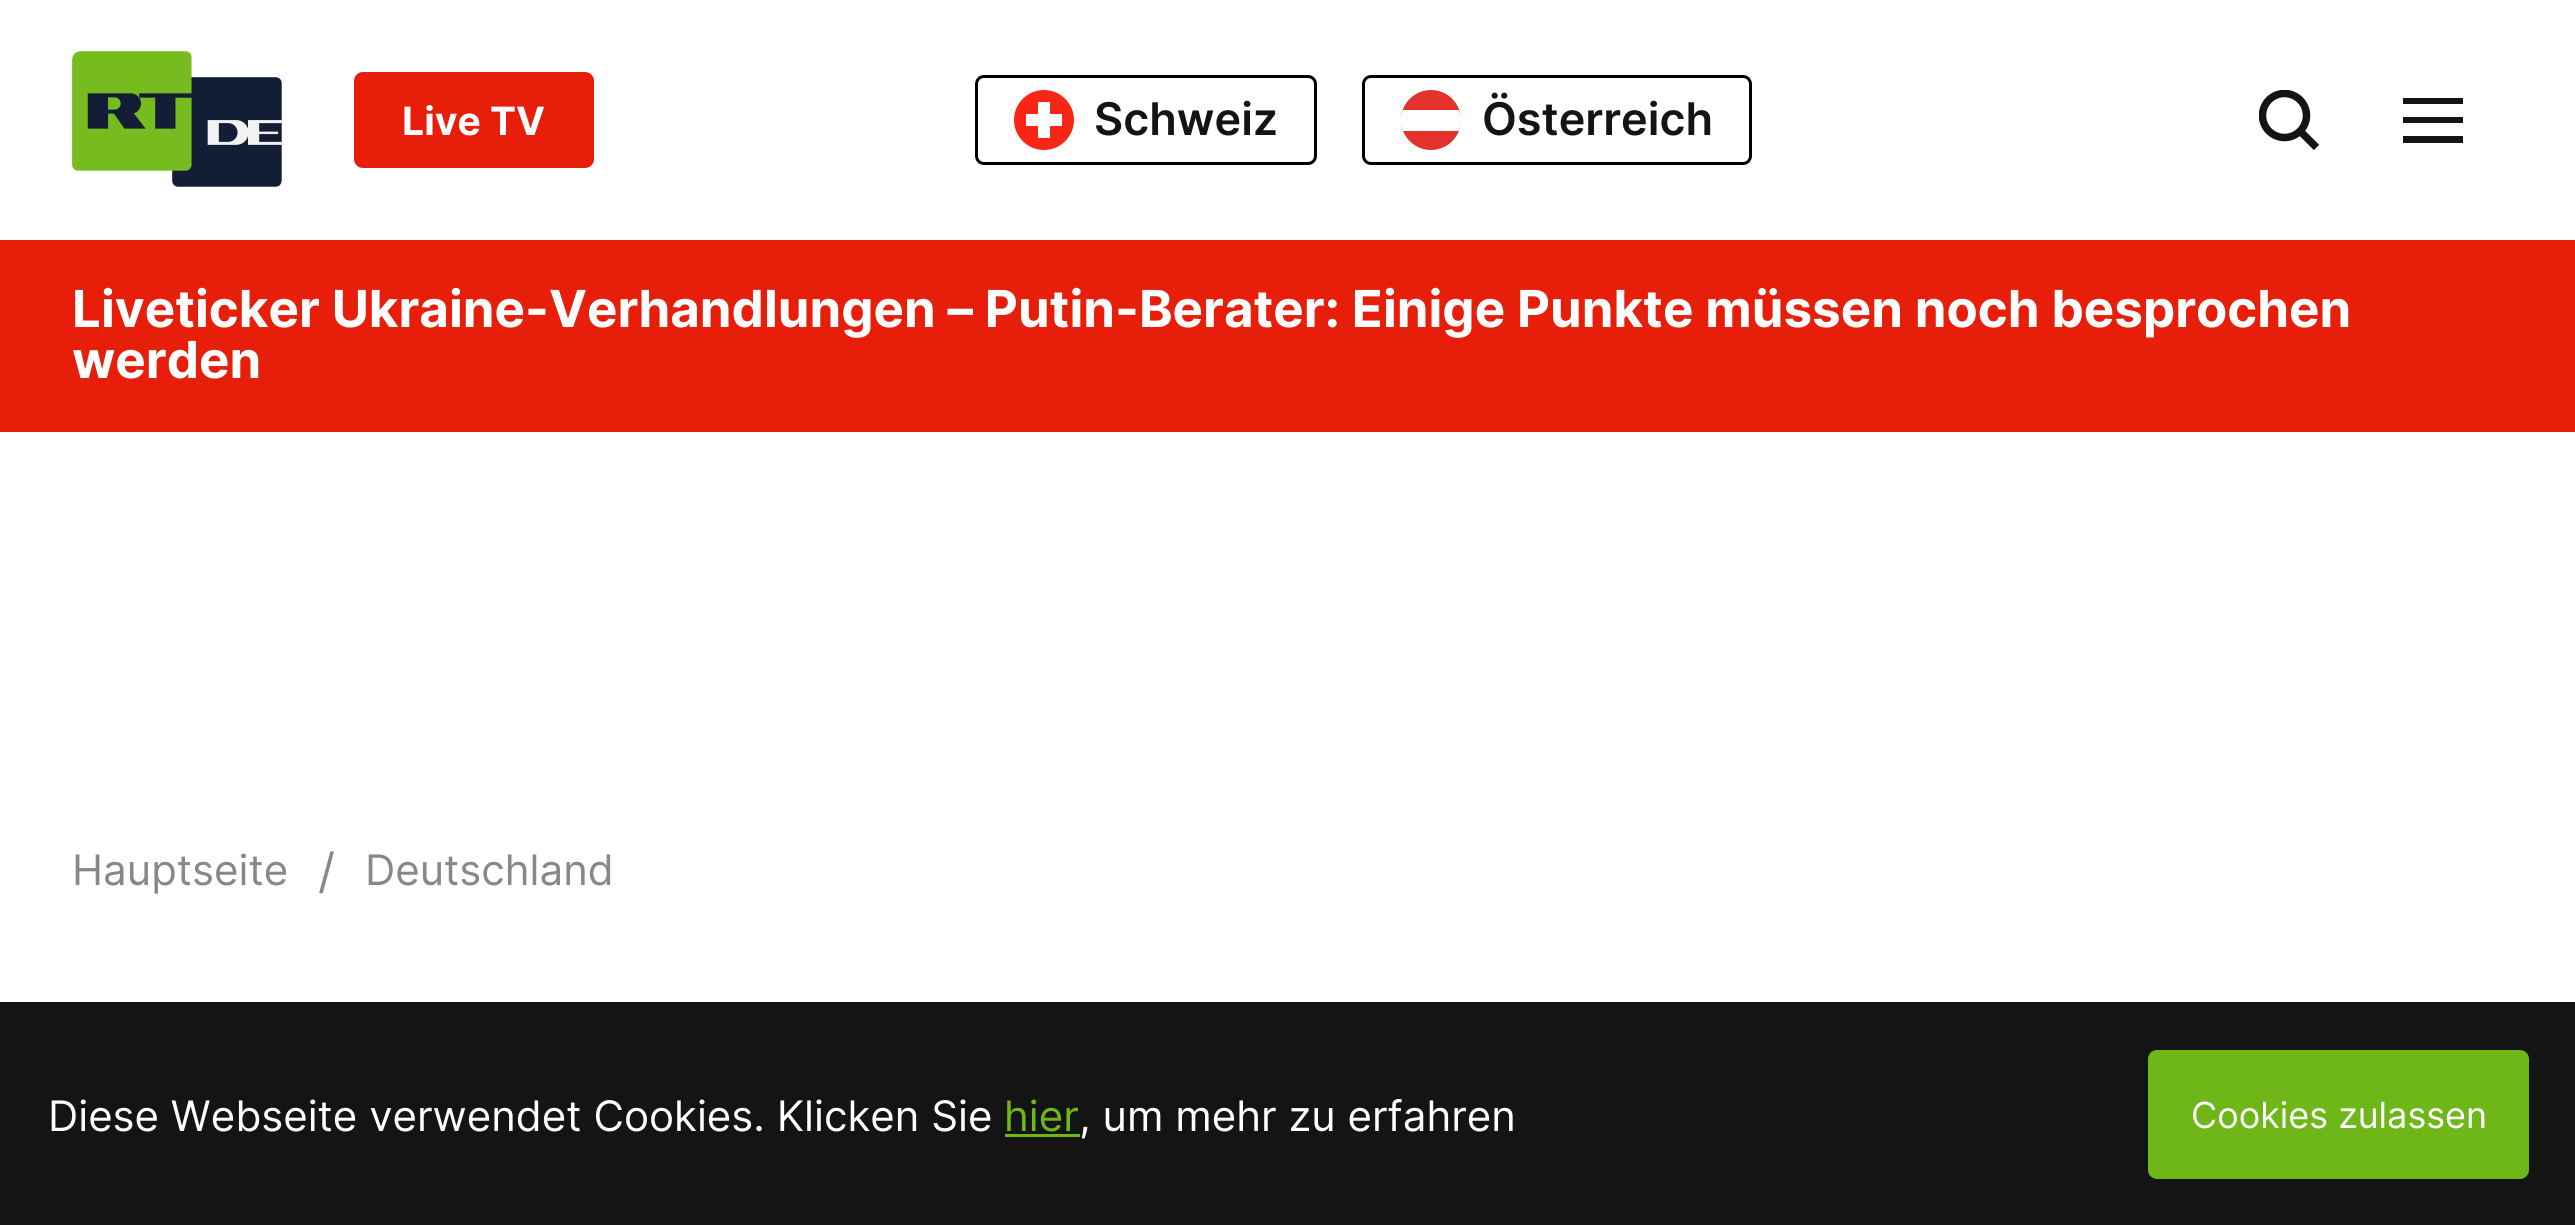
import math
import cairocffi as cairo

surface = cairo.ImageSurface(cairo.FORMAT_RGB24, 2575, 1225)
ctx = cairo.Context(surface)
options = cairo.FontOptions()
options.set_hint_metrics(cairo.HINT_METRICS_OFF)
options.set_hint_style(cairo.HINT_STYLE_NONE)
ctx.set_font_options(options)
ctx.set_miter_limit(4)


def rgb(r, g, b):
    ctx.set_source_rgb(r / 255, g / 255, b / 255)


def face(family, size, italic, bold):
    ctx.select_font_face(family, cairo.FONT_SLANT_ITALIC if italic else cairo.FONT_SLANT_NORMAL, cairo.FONT_WEIGHT_BOLD if bold else cairo.FONT_WEIGHT_NORMAL)
    ctx.set_font_size(size)


def label(x, y, s):
    ctx.move_to(x, y)
    ctx.show_text(s)


def rect(x, y, w, h):
    ctx.rectangle(x, y, w, h)
    ctx.fill()


def rrect(x, y, w, h, r):
    ctx.new_sub_path()
    for i, (u, v) in enumerate([(x + w - r, y + h - r), (x + r, y + h - r), (x + r, y + r), (x + w - r, y + r)]):
        ctx.arc(u, v, r, i * math.pi / 2, (i + 1) * math.pi / 2)
    ctx.close_path()


def image(path, x, y, w, h):
    ctx.save()
    ctx.set_source_surface(cairo.ImageSurface.create_from_png(path), x, y)
    ctx.rectangle(x, y, w, h)
    ctx.fill()
    ctx.restore()


rgb(255, 255, 255)
ctx.paint()
image('image0.png', 72, 51, 210, 136)
rgb(230, 30, 10)
rrect(354, 72, 240, 96, 9)
ctx.fill()
face('Inter', 39, 0, 1)
rgb(255, 255, 255)
label(402, 135, 'Live TV')
rrect(976.5, 76.5, 339, 87, 7.5)
rgb(0, 0, 0)
ctx.set_line_width(3)
ctx.stroke()
rgb(247, 38, 23)
ctx.arc(1044, 120, 30, 0, 2 * math.pi)
ctx.fill()
rgb(255, 255, 255)
rect(1038, 102, 12, 36)
rect(1026, 114, 36, 12)
face('Inter SemiBold', 45, 0, 0)
rgb(20, 20, 20)
label(1094, 135, 'Schweiz')
rrect(1363.5, 76.5, 387, 87, 7.5)
rgb(0, 0, 0)
ctx.stroke()
rgb(228, 49, 43)
ctx.arc(1431, 120, 30, 0, 2 * math.pi)
ctx.fill()
ctx.save()
ctx.rectangle(1401, 90, 60, 60)
ctx.clip()
rgb(255, 255, 255)
ctx.new_path()
ctx.move_to(1403, 131)
ctx.curve_to(1400, 124, 1400, 117, 1403, 110)
ctx.line_to(1459, 110)
ctx.curve_to(1462, 117, 1462, 124, 1459, 131)
ctx.close_path()
ctx.fill()
ctx.restore()
rgb(20, 20, 20)
label(1482, 135, 'Österreich')
ctx.save()
ctx.rectangle(2259, 90, 60, 60)
ctx.clip()
ctx.arc(2284.5, 115.5, 22, 0, 2 * math.pi)
ctx.set_line_width(7.5)
ctx.stroke()
ctx.restore()
ctx.new_path()
ctx.move_to(2300, 131)
ctx.line_to(2316.5, 147.5)
ctx.set_line_width(7.5)
ctx.stroke()
rect(2403, 98, 60, 6)
rect(2403, 117, 60, 6)
rect(2403, 136, 60, 7)
rgb(230, 30, 10)
rect(0, 240, 2575, 192)
face('Inter', 51, 0, 1)
rgb(255, 255, 255)
label(72, 327, 'Liveticker Ukraine-Verhandlungen – Putin-Berater: Einige Punkte müssen noch besprochen')
label(72, 378, 'werden')
face('Inter', 42, 0, 0)
rgb(136, 136, 136)
label(72, 885, 'Hauptseite')
face('Inter', 48, 0, 0)
label(318, 888, '/')
face('Inter', 42, 0, 0)
label(365, 885, 'Deutschland')
rgb(20, 20, 20)
rect(0, 1002, 2575, 223)
rgb(255, 255, 255)
label(48, 1131, 'Diese Webseite verwendet Cookies. Klicken Sie')
rgb(111, 183, 25)
label(1004, 1131, 'hier')
rect(1005, 1134, 75, 3)
rgb(255, 255, 255)
label(1079, 1131, ', um mehr zu erfahren')
rgb(111, 183, 25)
rrect(2148, 1050, 381, 129, 9)
ctx.fill()
face('Inter', 36, 0, 0)
rgb(255, 255, 255)
label(2191, 1128, 'Cookies zulassen')
surface.write_to_png('render.png')
